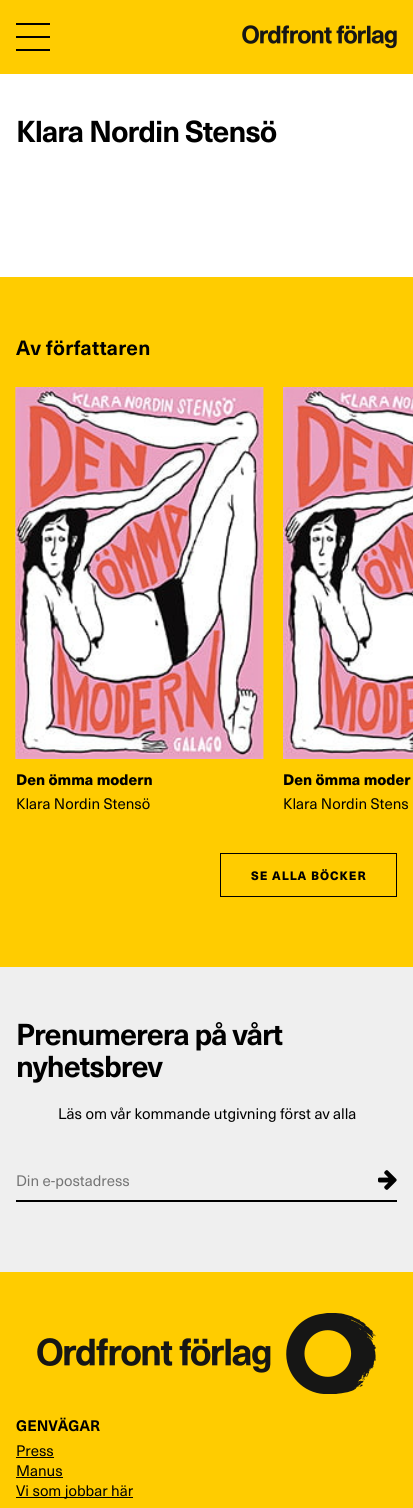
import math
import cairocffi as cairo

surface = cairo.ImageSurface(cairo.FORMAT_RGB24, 413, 1508)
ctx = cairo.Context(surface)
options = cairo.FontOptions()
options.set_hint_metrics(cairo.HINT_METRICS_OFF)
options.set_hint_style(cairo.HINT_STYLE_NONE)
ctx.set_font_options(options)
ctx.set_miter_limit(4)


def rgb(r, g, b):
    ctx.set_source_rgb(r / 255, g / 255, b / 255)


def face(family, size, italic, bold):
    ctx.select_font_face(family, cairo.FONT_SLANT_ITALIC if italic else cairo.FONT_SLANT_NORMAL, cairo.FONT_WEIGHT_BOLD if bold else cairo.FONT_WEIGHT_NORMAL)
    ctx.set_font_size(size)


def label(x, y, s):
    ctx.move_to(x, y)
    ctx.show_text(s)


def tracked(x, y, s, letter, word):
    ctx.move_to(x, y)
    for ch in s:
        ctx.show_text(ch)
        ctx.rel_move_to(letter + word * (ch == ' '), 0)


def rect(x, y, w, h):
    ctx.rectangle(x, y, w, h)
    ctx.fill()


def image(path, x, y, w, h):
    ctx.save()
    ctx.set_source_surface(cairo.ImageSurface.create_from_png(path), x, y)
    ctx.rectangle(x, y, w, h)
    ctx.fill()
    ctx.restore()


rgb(255, 255, 255)
ctx.paint()
rgb(255, 204, 0)
rect(0, 0, 413, 74)
rgb(0, 0, 0)
rect(16, 23, 34, 2)
rect(16, 36, 34, 2)
rect(16, 49, 34, 2)
image('image0.png', 242, 25, 155, 24)
face('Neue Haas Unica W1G', 29.75, 0, 1)
tracked(16, 142, 'Klara Nordin Stensö', -1, 0)
rgb(255, 204, 0)
rect(0, 277, 413, 690)
face('Neue Haas Unica W1G', 20.25, 0, 1)
rgb(0, 0, 0)
tracked(16, 355, 'Av författaren', 0.25, 0)
image('image1.png', 15, 387, 249, 372)
face('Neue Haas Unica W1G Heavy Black', 15, 0, 0)
label(16, 785, 'Den ömma modern')
face('Neue Haas Unica W1G', 15, 0, 0)
label(16, 809, 'Klara Nordin Stensö')
image('image2.png', 283, 387, 130, 372)
face('Neue Haas Unica W1G Heavy Black', 15, 0, 0)
label(283, 785, 'Den ömma moder')
face('Neue Haas Unica W1G', 15, 0, 0)
label(283, 809, 'Klara Nordin Stens')
ctx.rectangle(220.5, 853.5, 176, 43)
ctx.set_line_width(1)
ctx.stroke()
face('Neue Haas Unica W1G Heavy Black', 12, 0, 0)
tracked(251, 880, 'SE ALLA BÖCKER', 1, 0)
rgb(239, 239, 239)
rect(0, 967, 413, 305)
face('Neue Haas Unica W1G', 29.75, 0, 1)
rgb(0, 0, 0)
tracked(16, 1045, 'Prenumerera på vårt', -1, 0)
tracked(16, 1077, 'nyhetsbrev', -1, 0)
face('Neue Haas Unica W1G', 15.1, 0, 0)
label(58, 1119, 'Läs om vår kommande utgivning först av alla')
rect(16, 1200, 381, 2)
face('Neue Haas Unica W1G', 15, 0, 0)
rgb(117, 117, 117)
label(16, 1186, 'Din e-postadress')
image('image3.png', 378, 1170, 19, 20)
rgb(255, 204, 0)
rect(0, 1272, 413, 236)
image('image4.png', 37, 1313, 339, 81)
face('Neue Haas Unica W1G', 15, 0, 1)
rgb(0, 0, 0)
label(16, 1431, 'GENVÄGAR')
face('Neue Haas Unica W1G', 15, 0, 0)
label(16, 1456, 'Press')
rect(16, 1457, 38, 1)
label(16, 1476, 'Manus')
rect(16, 1477, 47, 1)
rect(16, 1497, 117, 1)
label(16, 1496, 'Vi som jobbar här')
surface.write_to_png('render.png')
